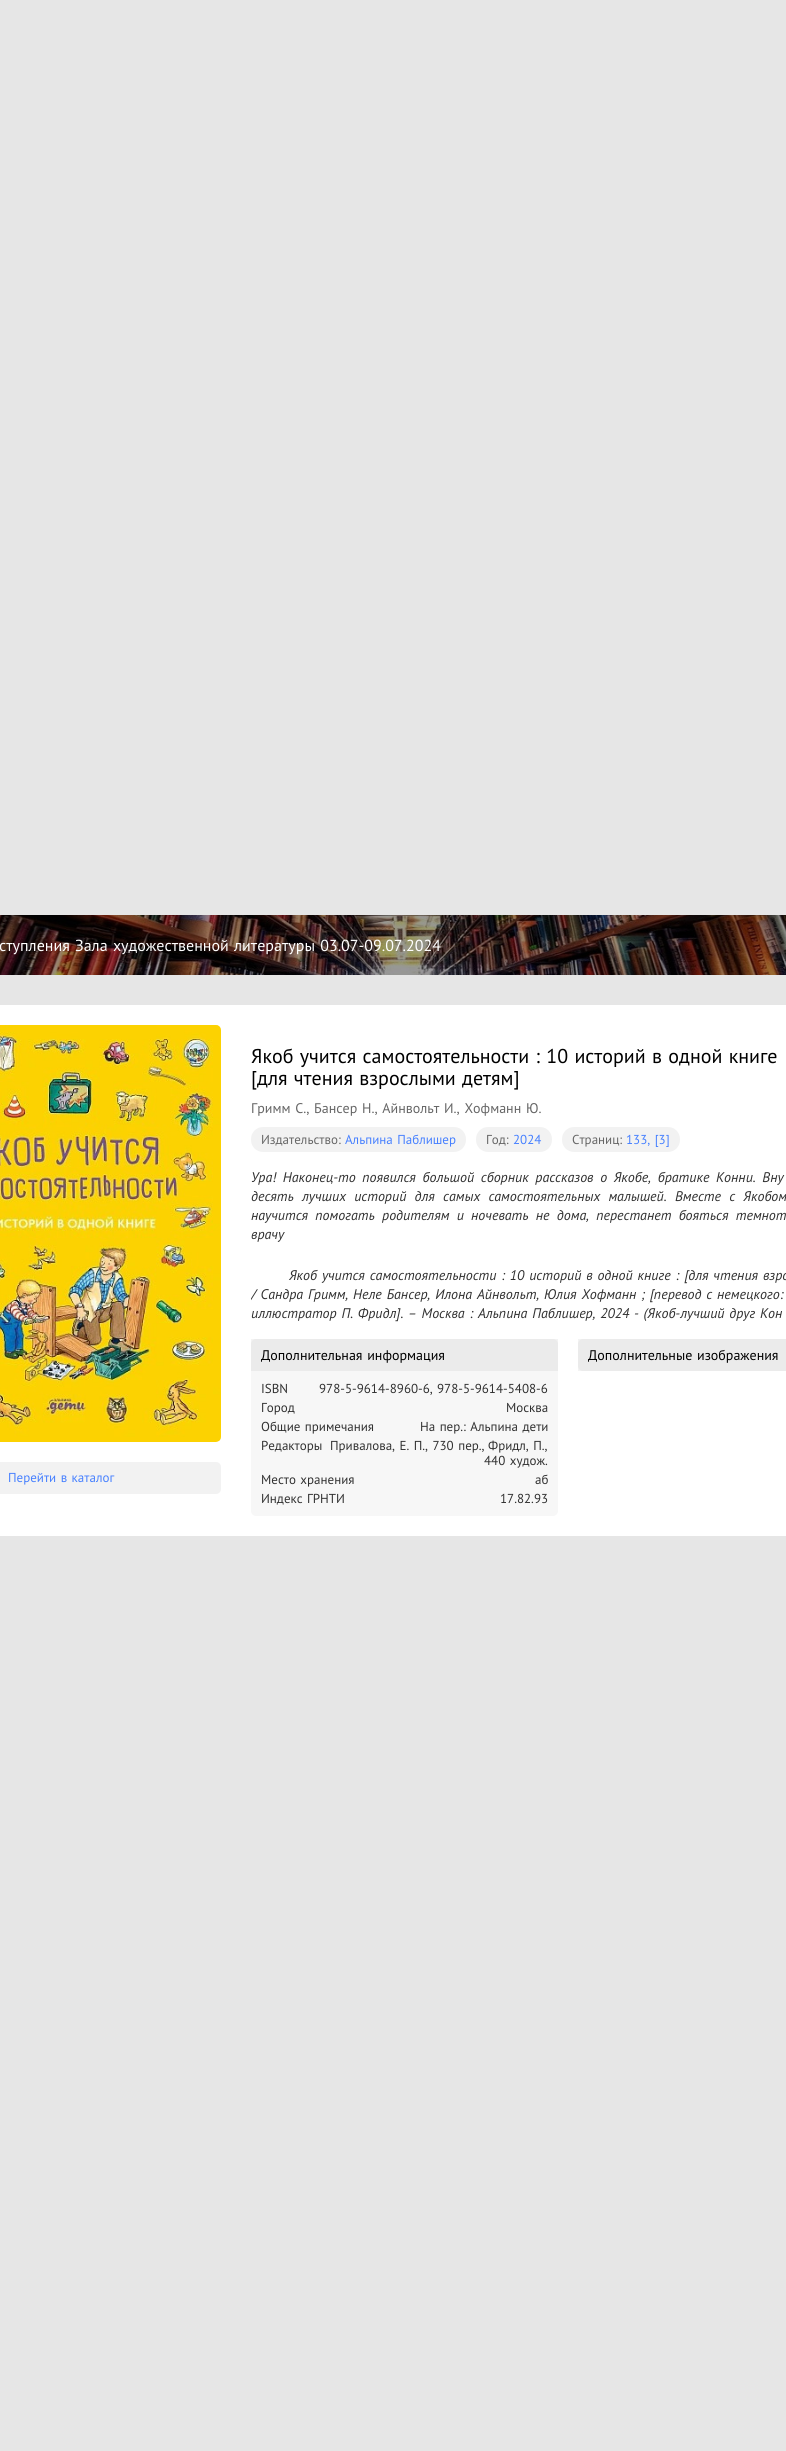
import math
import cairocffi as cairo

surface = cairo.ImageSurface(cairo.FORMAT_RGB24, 786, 2451)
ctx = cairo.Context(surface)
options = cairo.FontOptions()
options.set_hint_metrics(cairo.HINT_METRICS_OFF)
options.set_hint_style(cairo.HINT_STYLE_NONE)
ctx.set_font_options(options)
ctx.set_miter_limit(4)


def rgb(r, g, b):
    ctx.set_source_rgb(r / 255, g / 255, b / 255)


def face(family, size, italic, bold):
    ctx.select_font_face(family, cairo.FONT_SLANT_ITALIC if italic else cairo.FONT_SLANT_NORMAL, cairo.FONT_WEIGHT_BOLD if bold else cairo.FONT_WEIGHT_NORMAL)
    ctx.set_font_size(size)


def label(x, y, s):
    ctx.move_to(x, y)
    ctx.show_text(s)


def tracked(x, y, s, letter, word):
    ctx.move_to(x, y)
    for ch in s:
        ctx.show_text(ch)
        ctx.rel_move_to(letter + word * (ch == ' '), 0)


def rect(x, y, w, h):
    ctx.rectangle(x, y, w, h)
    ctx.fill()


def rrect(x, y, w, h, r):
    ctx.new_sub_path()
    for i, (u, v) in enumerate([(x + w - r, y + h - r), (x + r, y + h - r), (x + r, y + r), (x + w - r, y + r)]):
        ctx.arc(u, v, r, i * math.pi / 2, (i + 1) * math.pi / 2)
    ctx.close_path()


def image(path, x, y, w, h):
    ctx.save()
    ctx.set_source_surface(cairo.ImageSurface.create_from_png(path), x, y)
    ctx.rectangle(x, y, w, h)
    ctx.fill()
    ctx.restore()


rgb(230, 230, 230)
ctx.paint()
image('image0.png', 0, 915, 786, 60)
face('PT Sans', 16, 0, 0)
rgb(255, 255, 255)
tracked(-1, 951, 'ступления Зала художественной литературы 03.07-09.07.2024', 0, 1)
rect(0, 1005, 786, 531)
image('image1.png', 0, 1025, 221, 417)
rgb(242, 242, 242)
rrect(-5, 1462, 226, 32, 5)
ctx.fill()
face('PT Sans', 13, 0, 0)
rgb(70, 128, 255)
tracked(8, 1482, 'Перейти в каталог', 0, 1)
face('PT Sans', 20, 0, 0)
rgb(0, 0, 0)
tracked(251, 1063, 'Якоб учится самостоятельности : 10 историй в одной книге', 0, 1)
tracked(251, 1085, '[для чтения взрослыми детям]', 0, 1)
face('PT Sans', 14, 0, 0)
rgb(102, 102, 102)
tracked(251, 1113, 'Гримм С., Бансер Н., Айнвольт И., Хофманн Ю.', 0, 1)
rgb(242, 242, 242)
rrect(251, 1127, 215, 25, 12)
ctx.fill()
face('PT Sans', 13, 0, 0)
rgb(102, 102, 102)
label(261, 1144, 'Издательство:')
rgb(70, 128, 255)
tracked(345, 1144, 'Альпина Паблишер', 0, 1)
rgb(242, 242, 242)
rrect(476, 1127, 76, 25, 12)
ctx.fill()
rgb(102, 102, 102)
label(486, 1144, 'Год:')
rgb(70, 128, 255)
label(513, 1144, '2024')
rgb(242, 242, 242)
rrect(562, 1127, 118, 25, 12)
ctx.fill()
rgb(102, 102, 102)
label(572, 1144, 'Страниц:')
rgb(70, 128, 255)
tracked(626, 1144, '133, [3]', 0, 1)
face('PT Sans', 14, 1, 0)
rgb(49, 49, 49)
tracked(251, 1182, 'Ура! Наконец-то появился большой сборник рассказов о Якобе, братике Конни. Вну', 0, 2.9)
tracked(251, 1201, 'десять лучших историй для самых самостоятельных малышей. Вместе с Якобом', 0, 4.5)
tracked(251, 1220, 'научится помогать родителям и ночевать не дома, перестанет бояться темнот', 0, 3.5)
label(251, 1239, 'врачу')
tracked(289, 1280, 'Якоб учится самостоятельности : 10 историй в одной книге : [для чтения взро', 0, 1.1)
ctx.save()
ctx.rectangle(251, 1260, 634, 69)
ctx.clip()
tracked(251, 1299, '/ Сандра Гримм, Неле Бансер, Илона Айнвольт, Юлия Хофманн ; [перевод с немецкого:', 0, 1.1)
ctx.restore()
tracked(251, 1318, 'иллюстратор П. Фридл]. – Москва : Альпина Паблишер, 2024 - (Якоб-лучший друг Кон', 0, 1)
rgb(247, 247, 247)
rrect(251, 1339, 307, 177, 5)
ctx.fill()
ctx.set_source_rgba(0, 0, 0, 0.05)
rect(251, 1339, 307, 32)
face('PT Sans', 14, 0, 0)
rgb(0, 0, 0)
tracked(261, 1360, 'Дополнительная информация', 0, 1)
face('PT Sans', 13, 0, 0)
rgb(49, 49, 49)
label(261, 1393, 'ISBN')
label(319, 1393, '978-5-9614-8960-6,')
label(437, 1393, '978-5-9614-5408-6')
label(261, 1412, 'Город')
label(506, 1412, 'Москва')
tracked(261, 1431, 'Общие примечания', 0, 1)
tracked(420, 1431, 'На пер.: Альпина дети', 0, 1)
label(261, 1450, 'Редакторы')
tracked(330, 1450, 'Привалова, Е. П., 730 пер.,', 0, 1)
tracked(488, 1450, 'Фридл, П.,', 0, 1)
tracked(484, 1465, '440 худож.', 0, 1)
tracked(261, 1484, 'Место хранения', 0, 1)
label(535, 1484, 'аб')
tracked(261, 1503, 'Индекс ГРНТИ', 0, 1)
label(500, 1503, '17.82.93')
rgb(247, 247, 247)
rrect(578, 1339, 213, 32, 5)
ctx.fill()
ctx.set_source_rgba(0, 0, 0, 0.05)
rect(578, 1339, 208, 32)
face('PT Sans', 14, 0, 0)
rgb(0, 0, 0)
tracked(588, 1360, 'Дополнительные изображения', 0, 1)
surface.write_to_png('render.png')
